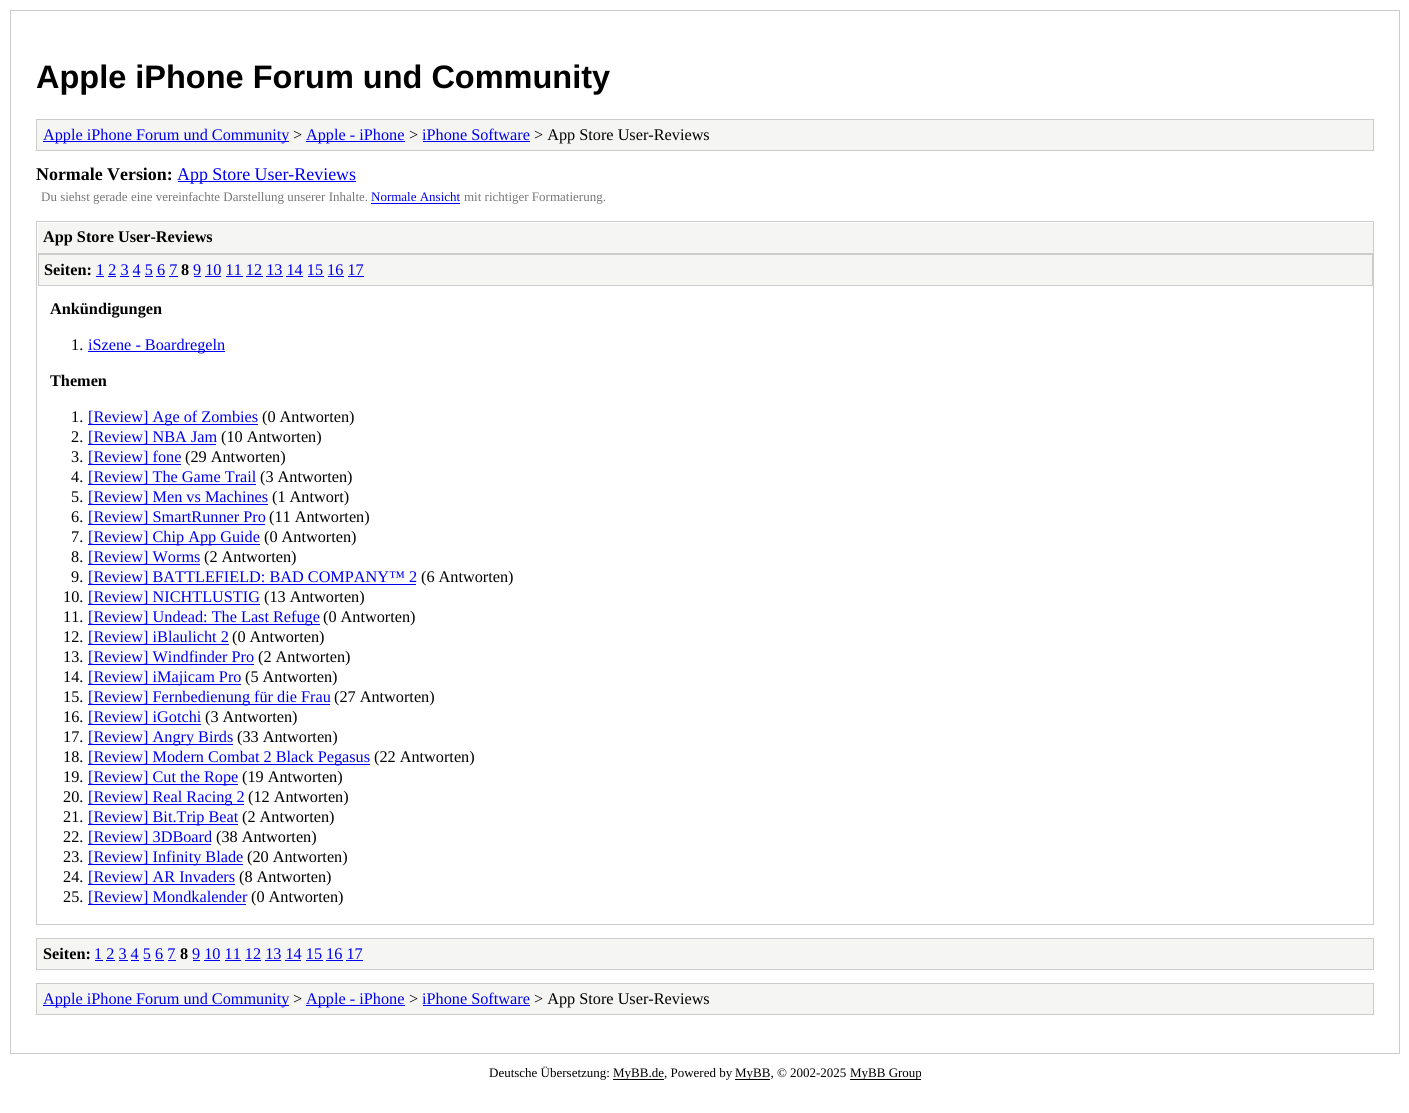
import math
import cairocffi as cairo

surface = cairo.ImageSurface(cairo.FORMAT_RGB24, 1409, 1113)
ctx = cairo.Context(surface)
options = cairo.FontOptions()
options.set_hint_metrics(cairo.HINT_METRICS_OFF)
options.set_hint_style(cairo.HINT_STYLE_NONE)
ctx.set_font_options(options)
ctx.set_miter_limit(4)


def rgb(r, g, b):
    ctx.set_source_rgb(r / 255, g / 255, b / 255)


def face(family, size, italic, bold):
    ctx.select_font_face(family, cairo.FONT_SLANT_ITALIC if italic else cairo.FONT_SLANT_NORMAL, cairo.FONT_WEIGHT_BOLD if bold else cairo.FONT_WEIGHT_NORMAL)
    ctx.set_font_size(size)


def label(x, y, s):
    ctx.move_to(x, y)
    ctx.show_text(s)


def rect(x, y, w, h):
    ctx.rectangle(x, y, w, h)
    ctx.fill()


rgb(255, 255, 255)
ctx.paint()
ctx.rectangle(10.5, 10.5, 1389, 1043)
rgb(204, 204, 204)
ctx.set_line_width(1)
ctx.stroke()
face('Liberation Sans', 32.5, 0, 1)
rgb(0, 0, 0)
label(36, 88, 'Apple iPhone Forum und Community')
rgb(245, 245, 244)
ctx.rectangle(36.5, 119.5, 1337, 31)
ctx.fill_preserve()
rgb(204, 204, 204)
ctx.stroke()
rgb(0, 0, 238)
rect(43, 141, 246, 1)
face('Liberation Serif', 16.25, 0, 0)
label(43, 140, 'Apple iPhone Forum und Community')
rgb(0, 0, 0)
label(293, 140, '>')
rgb(0, 0, 238)
rect(306, 141, 99, 1)
label(306, 140, 'Apple - iPhone')
rgb(0, 0, 0)
label(409, 140, '>')
rgb(0, 0, 238)
label(422, 140, 'iPhone Software')
rect(423, 141, 107, 1)
rgb(0, 0, 0)
label(534, 140, '> App Store User-Reviews')
face('Liberation Serif', 17.9, 0, 1)
label(36, 180, 'Normale Version:')
rgb(0, 0, 238)
rect(178, 181, 178, 1)
face('Liberation Serif', 17.9, 0, 0)
label(177, 180, 'App Store User-Reviews')
face('Liberation Serif', 13, 0, 0)
rgb(119, 119, 119)
label(41, 201, 'Du siehst gerade eine vereinfachte Darstellung unserer Inhalte.')
rgb(0, 0, 238)
label(371, 201, 'Normale Ansicht')
rect(371, 203, 89, 1)
rgb(119, 119, 119)
label(464, 201, 'mit richtiger Formatierung.')
ctx.rectangle(36.5, 221.5, 1337, 703)
rgb(204, 204, 204)
ctx.stroke()
rgb(245, 245, 244)
rect(38, 223, 1335, 30)
rgb(204, 204, 204)
rect(38, 253, 1335, 1)
face('Liberation Serif', 16.25, 0, 1)
rgb(0, 0, 0)
label(43, 242, 'App Store User-Reviews')
rgb(245, 245, 244)
ctx.rectangle(38.5, 254.5, 1334, 31)
ctx.fill_preserve()
rgb(204, 204, 204)
ctx.stroke()
rgb(0, 0, 0)
label(44, 275, 'Seiten:')
face('Liberation Serif', 16.25, 0, 0)
rgb(0, 0, 238)
label(96, 275, '1 2 3 4 5 6 7')
rect(96, 276, 8, 1)
face('Liberation Serif', 16.25, 0, 1)
rgb(0, 0, 0)
label(181, 275, '8')
face('Liberation Serif', 16.25, 0, 0)
rgb(0, 0, 238)
label(193, 275, '9 10 11 12 13 14 15 16 17')
rect(194, 276, 7, 1)
rect(108, 276, 8, 1)
rect(120, 276, 9, 1)
rect(133, 276, 7, 1)
rect(145, 276, 8, 1)
rect(156, 276, 9, 1)
rect(169, 276, 9, 1)
rect(205, 276, 16, 1)
rect(226, 276, 17, 1)
rect(246, 276, 17, 1)
rect(266, 276, 17, 1)
rect(286, 276, 17, 1)
rect(308, 276, 16, 1)
rect(328, 276, 16, 1)
rect(348, 276, 16, 1)
face('Liberation Serif', 16.25, 0, 1)
rgb(0, 0, 0)
label(50, 314, 'Ankündigungen')
face('Liberation Serif', 16.25, 0, 0)
label(71, 350, '1.')
rgb(0, 0, 238)
rect(88, 351, 137, 1)
label(88, 350, 'iSzene - Boardregeln')
face('Liberation Serif', 16.25, 0, 1)
rgb(0, 0, 0)
label(50, 386, 'Themen')
face('Liberation Serif', 16.25, 0, 0)
label(71, 422, '1.')
rgb(0, 0, 238)
rect(88, 424, 170, 1)
label(88, 422, '[Review] Age of Zombies')
rgb(0, 0, 0)
label(262, 422, '(0 Antworten)')
label(71, 442, '2.')
rgb(0, 0, 238)
rect(88, 444, 128, 1)
label(88, 442, '[Review] NBA Jam')
rgb(0, 0, 0)
label(221, 442, '(10 Antworten)')
label(71, 462, '3.')
rgb(0, 0, 238)
rect(88, 464, 93, 1)
label(88, 462, '[Review] fone')
rgb(0, 0, 0)
label(185, 462, '(29 Antworten)')
label(71, 482, '4.')
rgb(0, 0, 238)
rect(88, 484, 168, 1)
label(88, 482, '[Review] The Game Trail')
rgb(0, 0, 0)
label(260, 482, '(3 Antworten)')
label(71, 502, '5.')
rgb(0, 0, 238)
rect(88, 504, 180, 1)
label(88, 502, '[Review] Men vs Machines')
rgb(0, 0, 0)
label(272, 502, '(1 Antwort)')
label(71, 522, '6.')
rgb(0, 0, 238)
rect(88, 524, 177, 1)
label(88, 522, '[Review] SmartRunner Pro')
rgb(0, 0, 0)
label(269, 522, '(11 Antworten)')
label(71, 542, '7.')
rgb(0, 0, 238)
rect(88, 544, 172, 1)
label(88, 542, '[Review] Chip App Guide')
rgb(0, 0, 0)
label(264, 542, '(0 Antworten)')
label(71, 562, '8.')
rgb(0, 0, 238)
rect(88, 564, 112, 1)
label(88, 562, '[Review] Worms')
rgb(0, 0, 0)
label(204, 562, '(2 Antworten)')
label(71, 582, '9.')
rgb(0, 0, 238)
rect(88, 584, 328, 1)
label(88, 582, '[Review] BATTLEFIELD: BAD COMPANY™ 2')
rgb(0, 0, 0)
label(421, 582, '(6 Antworten)')
label(63, 602, '10.')
rgb(0, 0, 238)
rect(88, 604, 172, 1)
label(88, 602, '[Review] NICHTLUSTIG')
rgb(0, 0, 0)
label(264, 602, '(13 Antworten)')
label(63, 622, '11.')
rgb(0, 0, 238)
rect(88, 624, 232, 1)
label(88, 622, '[Review] Undead: The Last Refuge')
rgb(0, 0, 0)
label(323, 622, '(0 Antworten)')
label(63, 642, '12.')
rgb(0, 0, 238)
rect(88, 644, 141, 1)
label(88, 642, '[Review] iBlaulicht 2')
rgb(0, 0, 0)
label(232, 642, '(0 Antworten)')
label(63, 662, '13.')
rgb(0, 0, 238)
rect(88, 664, 166, 1)
label(88, 662, '[Review] Windfinder Pro')
rgb(0, 0, 0)
label(258, 662, '(2 Antworten)')
label(63, 682, '14.')
rgb(0, 0, 238)
rect(88, 684, 153, 1)
label(88, 682, '[Review] iMajicam Pro')
rgb(0, 0, 0)
label(245, 682, '(5 Antworten)')
label(63, 702, '15.')
rgb(0, 0, 238)
rect(88, 704, 242, 1)
label(88, 702, '[Review] Fernbedienung für die Frau')
rgb(0, 0, 0)
label(334, 702, '(27 Antworten)')
label(63, 722, '16.')
rgb(0, 0, 238)
rect(88, 724, 113, 1)
label(88, 722, '[Review] iGotchi')
rgb(0, 0, 0)
label(205, 722, '(3 Antworten)')
label(63, 742, '17.')
rgb(0, 0, 238)
rect(88, 744, 145, 1)
label(88, 742, '[Review] Angry Birds')
rgb(0, 0, 0)
label(237, 742, '(33 Antworten)')
label(63, 762, '18.')
rgb(0, 0, 238)
rect(88, 764, 282, 1)
label(88, 762, '[Review] Modern Combat 2 Black Pegasus')
rgb(0, 0, 0)
label(374, 762, '(22 Antworten)')
label(63, 782, '19.')
rgb(0, 0, 238)
rect(88, 784, 150, 1)
label(88, 782, '[Review] Cut the Rope')
rgb(0, 0, 0)
label(242, 782, '(19 Antworten)')
label(63, 802, '20.')
rgb(0, 0, 238)
rect(88, 804, 156, 1)
label(88, 802, '[Review] Real Racing 2')
rgb(0, 0, 0)
label(248, 802, '(12 Antworten)')
label(63, 822, '21.')
rgb(0, 0, 238)
rect(88, 824, 150, 1)
label(88, 822, '[Review] Bit.Trip Beat')
rgb(0, 0, 0)
label(242, 822, '(2 Antworten)')
label(63, 842, '22.')
rgb(0, 0, 238)
rect(88, 844, 123, 1)
label(88, 842, '[Review] 3DBoard')
rgb(0, 0, 0)
label(216, 842, '(38 Antworten)')
label(63, 862, '23.')
rgb(0, 0, 238)
rect(88, 864, 155, 1)
label(88, 862, '[Review] Infinity Blade')
rgb(0, 0, 0)
label(247, 862, '(20 Antworten)')
label(63, 882, '24.')
rgb(0, 0, 238)
rect(88, 884, 147, 1)
label(88, 882, '[Review] AR Invaders')
rgb(0, 0, 0)
label(239, 882, '(8 Antworten)')
label(63, 902, '25.')
rgb(0, 0, 238)
rect(88, 904, 158, 1)
label(88, 902, '[Review] Mondkalender')
rgb(0, 0, 0)
label(251, 902, '(0 Antworten)')
rgb(245, 245, 244)
ctx.rectangle(36.5, 938.5, 1337, 31)
ctx.fill_preserve()
rgb(204, 204, 204)
ctx.stroke()
face('Liberation Serif', 16.25, 0, 1)
rgb(0, 0, 0)
label(43, 959, 'Seiten:')
face('Liberation Serif', 16.25, 0, 0)
rgb(0, 0, 238)
label(94, 959, '1 2 3 4 5 6 7')
rect(95, 960, 8, 1)
face('Liberation Serif', 16.25, 0, 1)
rgb(0, 0, 0)
label(180, 959, '8')
face('Liberation Serif', 16.25, 0, 0)
rgb(0, 0, 238)
label(192, 959, '9 10 11 12 13 14 15 16 17')
rect(193, 960, 7, 1)
rect(106, 960, 9, 1)
rect(119, 960, 9, 1)
rect(131, 960, 8, 1)
rect(144, 960, 7, 1)
rect(155, 960, 9, 1)
rect(168, 960, 8, 1)
rect(204, 960, 16, 1)
rect(225, 960, 16, 1)
rect(245, 960, 16, 1)
rect(265, 960, 16, 1)
rect(285, 960, 16, 1)
rect(306, 960, 17, 1)
rect(326, 960, 17, 1)
rect(346, 960, 17, 1)
rgb(245, 245, 244)
ctx.rectangle(36.5, 983.5, 1337, 31)
ctx.fill_preserve()
rgb(204, 204, 204)
ctx.stroke()
rgb(0, 0, 238)
rect(43, 1005, 246, 1)
label(43, 1004, 'Apple iPhone Forum und Community')
rgb(0, 0, 0)
label(293, 1004, '>')
rgb(0, 0, 238)
rect(306, 1005, 99, 1)
label(306, 1004, 'Apple - iPhone')
rgb(0, 0, 0)
label(409, 1004, '>')
rgb(0, 0, 238)
label(422, 1004, 'iPhone Software')
rect(423, 1005, 107, 1)
rgb(0, 0, 0)
label(534, 1004, '> App Store User-Reviews')
face('Liberation Serif', 13, 0, 0)
label(489, 1077, 'Deutsche Übersetzung:')
rect(613, 1079, 51, 1)
label(613, 1077, 'MyBB.de, Powered by')
rect(735, 1079, 35, 1)
label(735, 1077, 'MyBB, © 2002-2025')
rect(850, 1079, 71, 1)
label(850, 1077, 'MyBB Group')
surface.write_to_png('render.png')
